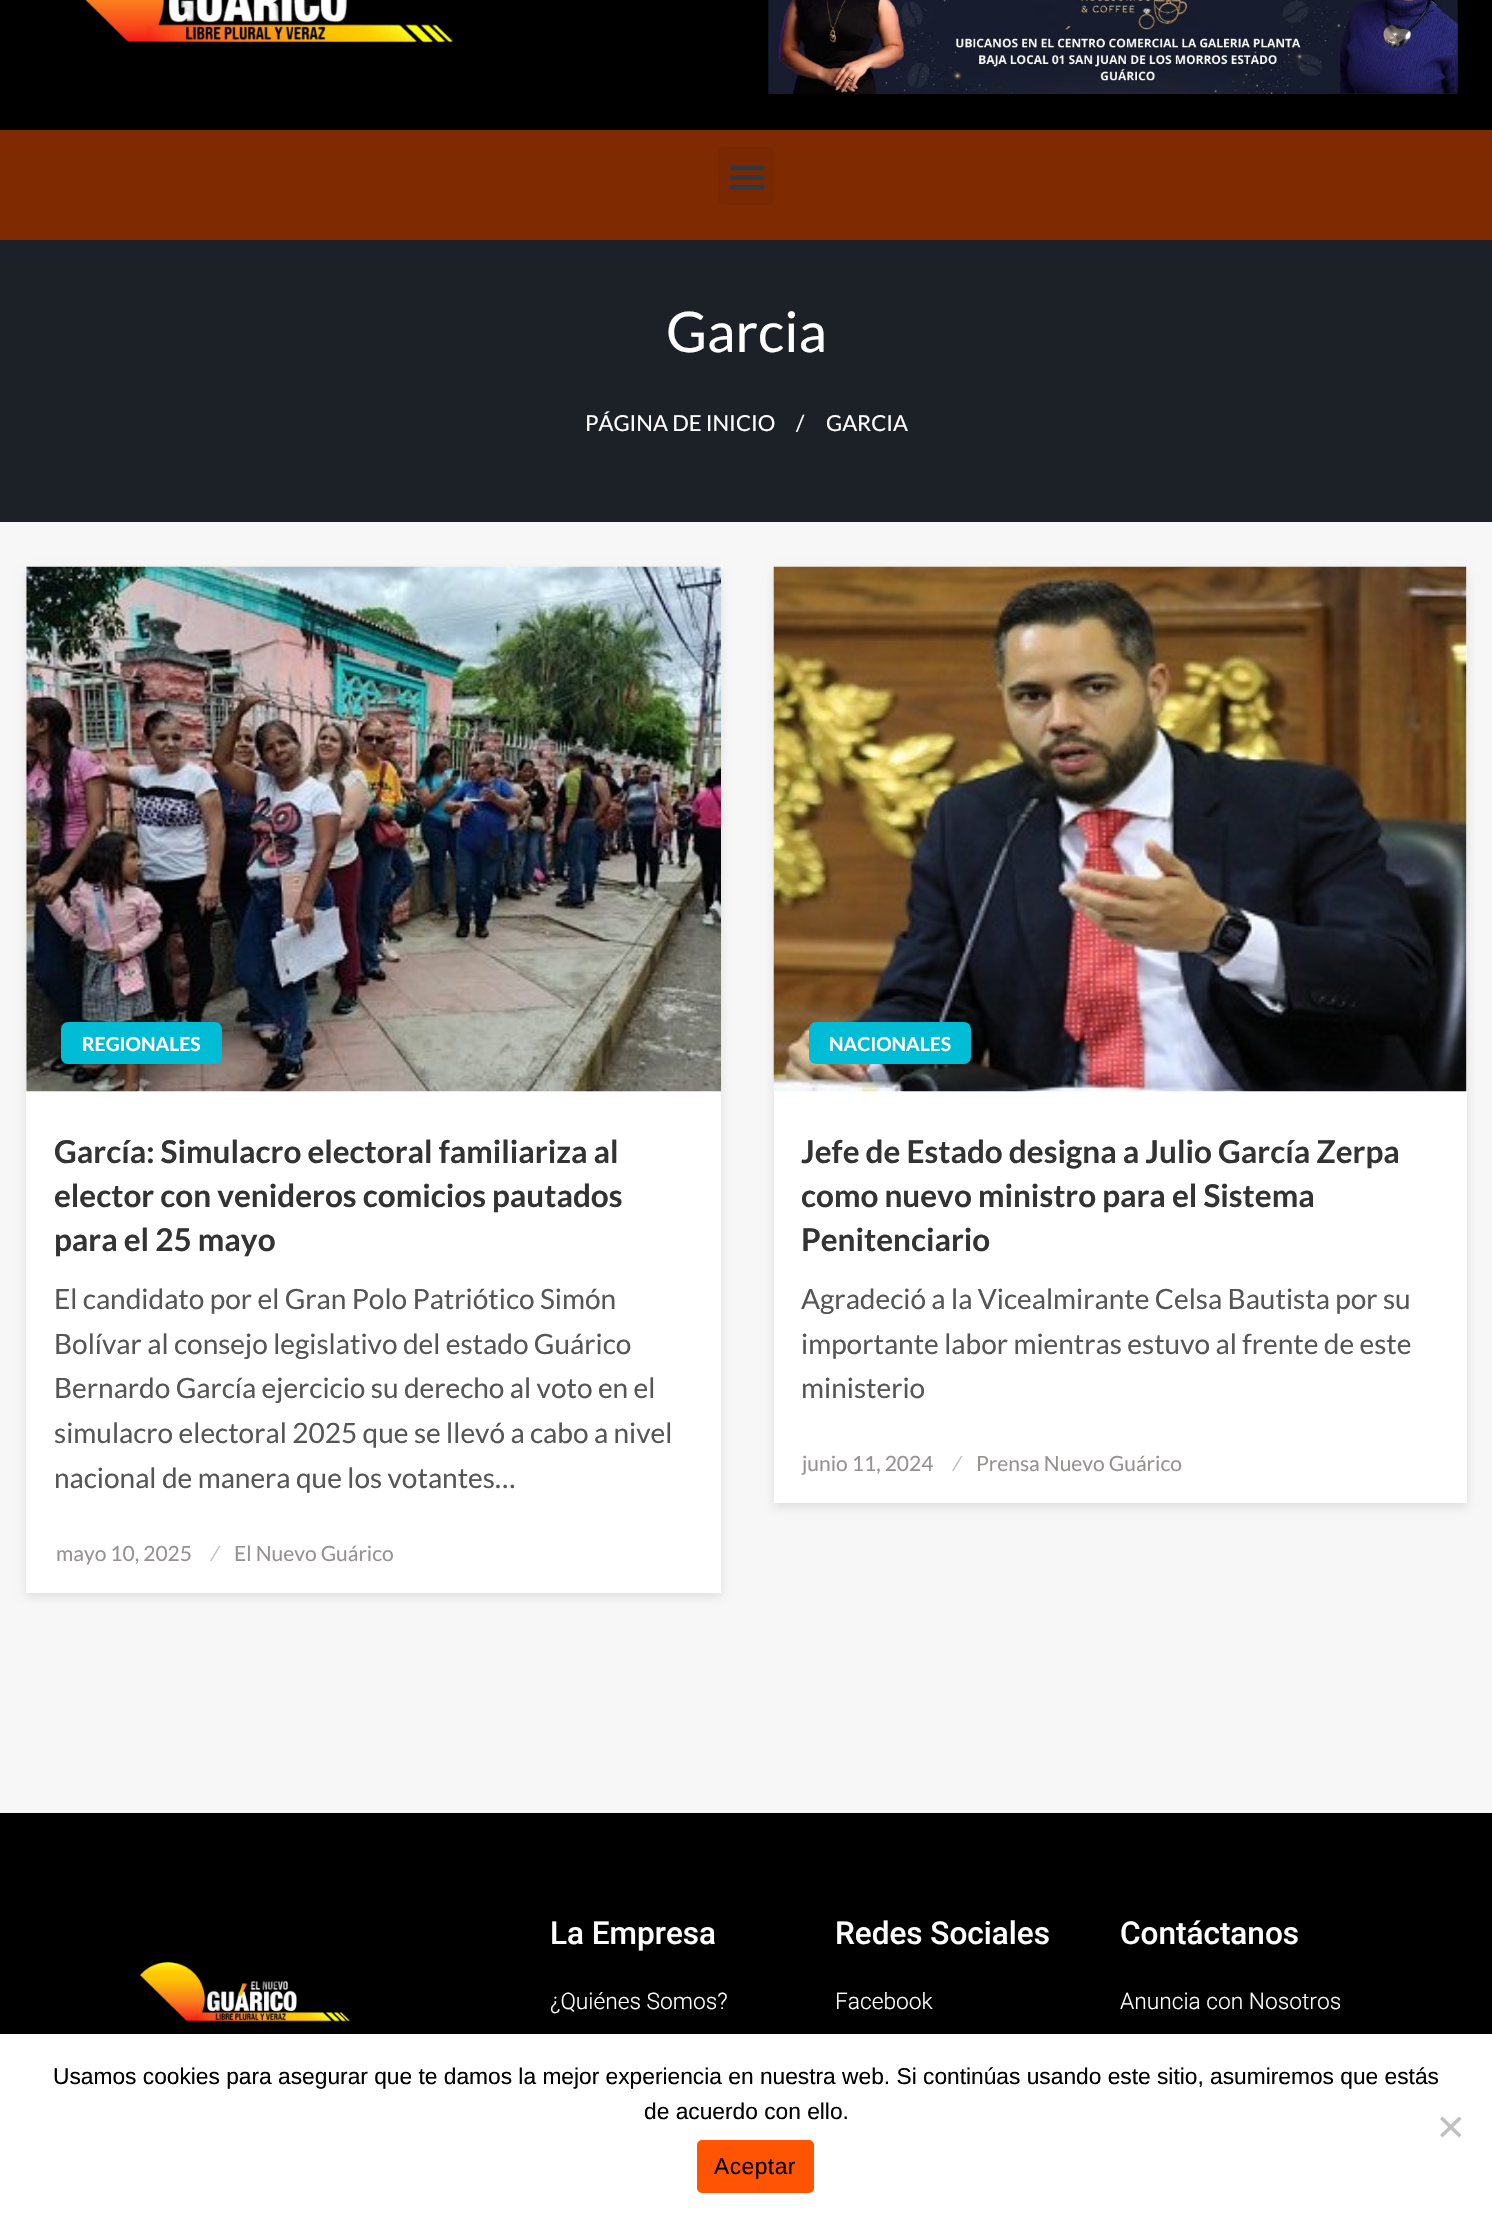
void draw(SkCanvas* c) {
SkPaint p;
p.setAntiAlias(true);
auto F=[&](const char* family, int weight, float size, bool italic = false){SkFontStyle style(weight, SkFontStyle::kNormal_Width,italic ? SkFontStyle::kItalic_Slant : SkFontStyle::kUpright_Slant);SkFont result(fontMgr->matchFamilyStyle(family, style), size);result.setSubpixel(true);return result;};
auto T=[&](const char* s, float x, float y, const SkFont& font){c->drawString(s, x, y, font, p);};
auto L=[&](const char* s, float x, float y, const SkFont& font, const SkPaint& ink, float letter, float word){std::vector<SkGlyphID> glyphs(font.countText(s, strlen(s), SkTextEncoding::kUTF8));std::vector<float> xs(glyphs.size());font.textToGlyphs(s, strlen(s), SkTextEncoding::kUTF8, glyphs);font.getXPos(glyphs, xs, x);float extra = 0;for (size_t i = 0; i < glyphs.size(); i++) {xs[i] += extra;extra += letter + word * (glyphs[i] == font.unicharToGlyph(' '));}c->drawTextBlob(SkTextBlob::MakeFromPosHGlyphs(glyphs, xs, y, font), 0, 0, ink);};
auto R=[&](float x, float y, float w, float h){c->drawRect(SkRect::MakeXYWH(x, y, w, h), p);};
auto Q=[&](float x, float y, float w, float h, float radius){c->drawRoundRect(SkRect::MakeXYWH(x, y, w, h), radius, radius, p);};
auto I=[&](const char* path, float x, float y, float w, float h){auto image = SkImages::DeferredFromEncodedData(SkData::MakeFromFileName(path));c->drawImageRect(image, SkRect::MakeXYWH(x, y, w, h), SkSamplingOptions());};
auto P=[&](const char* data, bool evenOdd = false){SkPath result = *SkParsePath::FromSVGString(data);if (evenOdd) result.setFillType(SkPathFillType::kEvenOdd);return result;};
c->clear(0xfff7f7f7);
p.setColor(0xff000000);
R(0,0,1492,130);
I("1.png",85,0,369,43);
I("2.png",768,0,690,94);
p.setColor(0x80000000);
p.setMaskFilter(SkMaskFilter::MakeBlur(kNormal_SkBlurStyle, 9));
c->drawRect(SkRect::MakeXYWH(0,130,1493,110),p);
p.setMaskFilter(nullptr);
p.setColor(0xff802a02);
R(0,130,1492,110);
p.setColor(0xff7a2802);
Q(718,147,57,58,5);
I("3.png",729,165,36,25);
p.setColor(0xff1c2127);
R(0,240,1492,282);
auto f1 = F("Lato",400,56);
p.setColor(0xffffffff);
T("Garcia",666,352,f1);
auto f2 = F("Lato",400,22);
T("PÁGINA DE INICIO",585,431,f2);
T("/",796,431,f2);
T("GARCIA",826,431,f2);
p.setColor(0x1a000000);
p.setMaskFilter(SkMaskFilter::MakeBlur(kNormal_SkBlurStyle, 4.5));
c->drawRect(SkRect::MakeXYWH(26,571,695,1025),p);
p.setMaskFilter(nullptr);
p.setColor(0xffffffff);
R(26,567,695,1026);
I("4.png",26,566,695,526);
p.setColor(0xff00bcd4);
Q(61,1022,161,42,7);
auto f3 = F("Lato",700,19.25);
p.setColor(0xffffffff);
T("REGIONALES",82,1051,f3);
auto f4 = F("Lato",700,31.5);
p.setColor(0xff333333);
T("García: Simulacro electoral familiariza al",54,1163,f4);
T("elector con venideros comicios pautados",54,1207,f4);
T("para el 25 mayo",54,1251,f4);
auto f5 = F("Lato",400,28);
p.setColor(0xff565656);
T("El candidato por el Gran Polo Patriótico Simón",54,1309,f5);
T("Bolívar al consejo legislativo del estado Guárico",54,1354,f5);
T("Bernardo García ejercicio su derecho al voto en el",54,1398,f5);
T("simulacro electoral 2025 que se llevó a cabo a nivel",54,1443,f5);
T("nacional de manera que los votantes…",54,1488,f5);
auto f6 = F("Lato",400,21);
p.setColor(0xff969292);
T("mayo 10, 2025",56,1561,f6);
p.setColor(0xffc0c0c0);
T("⁄",212,1561,f6);
p.setColor(0xff969292);
T("El Nuevo Guárico",234,1561,f6);
p.setColor(0x1a000000);
p.setMaskFilter(SkMaskFilter::MakeBlur(kNormal_SkBlurStyle, 4.5));
c->drawRect(SkRect::MakeXYWH(774,571,693,936),p);
p.setMaskFilter(nullptr);
p.setColor(0xffffffff);
R(774,567,693,936);
I("5.png",773,566,694,526);
p.setColor(0xff00bcd4);
Q(809,1022,162,42,7);
p.setColor(0xffffffff);
T("NACIONALES",829,1051,f3);
p.setColor(0xff333333);
T("Jefe de Estado designa a Julio García Zerpa",801,1163,f4);
T("como nuevo ministro para el Sistema",801,1207,f4);
T("Penitenciario",801,1251,f4);
p.setColor(0xff565656);
T("Agradeció a la Vicealmirante Celsa Bautista por su",801,1309,f5);
T("importante labor mientras estuvo al frente de este",801,1354,f5);
T("ministerio",801,1398,f5);
p.setColor(0xff969292);
T("junio 11, 2024",802,1471,f6);
p.setColor(0xffc0c0c0);
T("⁄",954,1471,f6);
p.setColor(0xff969292);
T("Prensa Nuevo Guárico",976,1471,f6);
p.setColor(0xff000000);
R(0,1813,1492,221);
I("6.png",140,1962,210,60);
auto f7 = F("Roboto",500,31.5);
p.setColor(0xffffffff);
T("La Empresa",550,1944,f7);
auto f8 = F("Roboto",300,22.75);
T("¿Quiénes Somos?",550,2009,f8);
T("Redes Sociales",835,1944,f7);
T("Facebook",835,2009,f8);
T("Contáctanos",1120,1944,f7);
T("Anuncia con Nosotros",1120,2009,f8);
R(0,2034,1492,184);
auto f9 = F("Liberation Sans",400,22.75);
p.setColor(0xff000000);
T("Usamos cookies para asegurar que te damos la mejor experiencia en nuestra web. Si continúas usando este sitio, asumiremos que estás",53,2084,f9);
T("de acuerdo con ello.",644,2119,f9);
p.setColor(0xffc0c0c0);
c->drawPath(P("M1459 2116.5l2.5 2.5l-19 18.5l-2.5-2.5z"),p);
c->drawPath(P("M1440 2119l2.5-2.5l19 18.5l-2.5 2.5z"),p);
p.setColor(0xffff5403);
Q(697,2140,117,53,5);
p.setColor(0xff000000);
L("Aceptar",714,2174,f9,p,.5,0);
}
